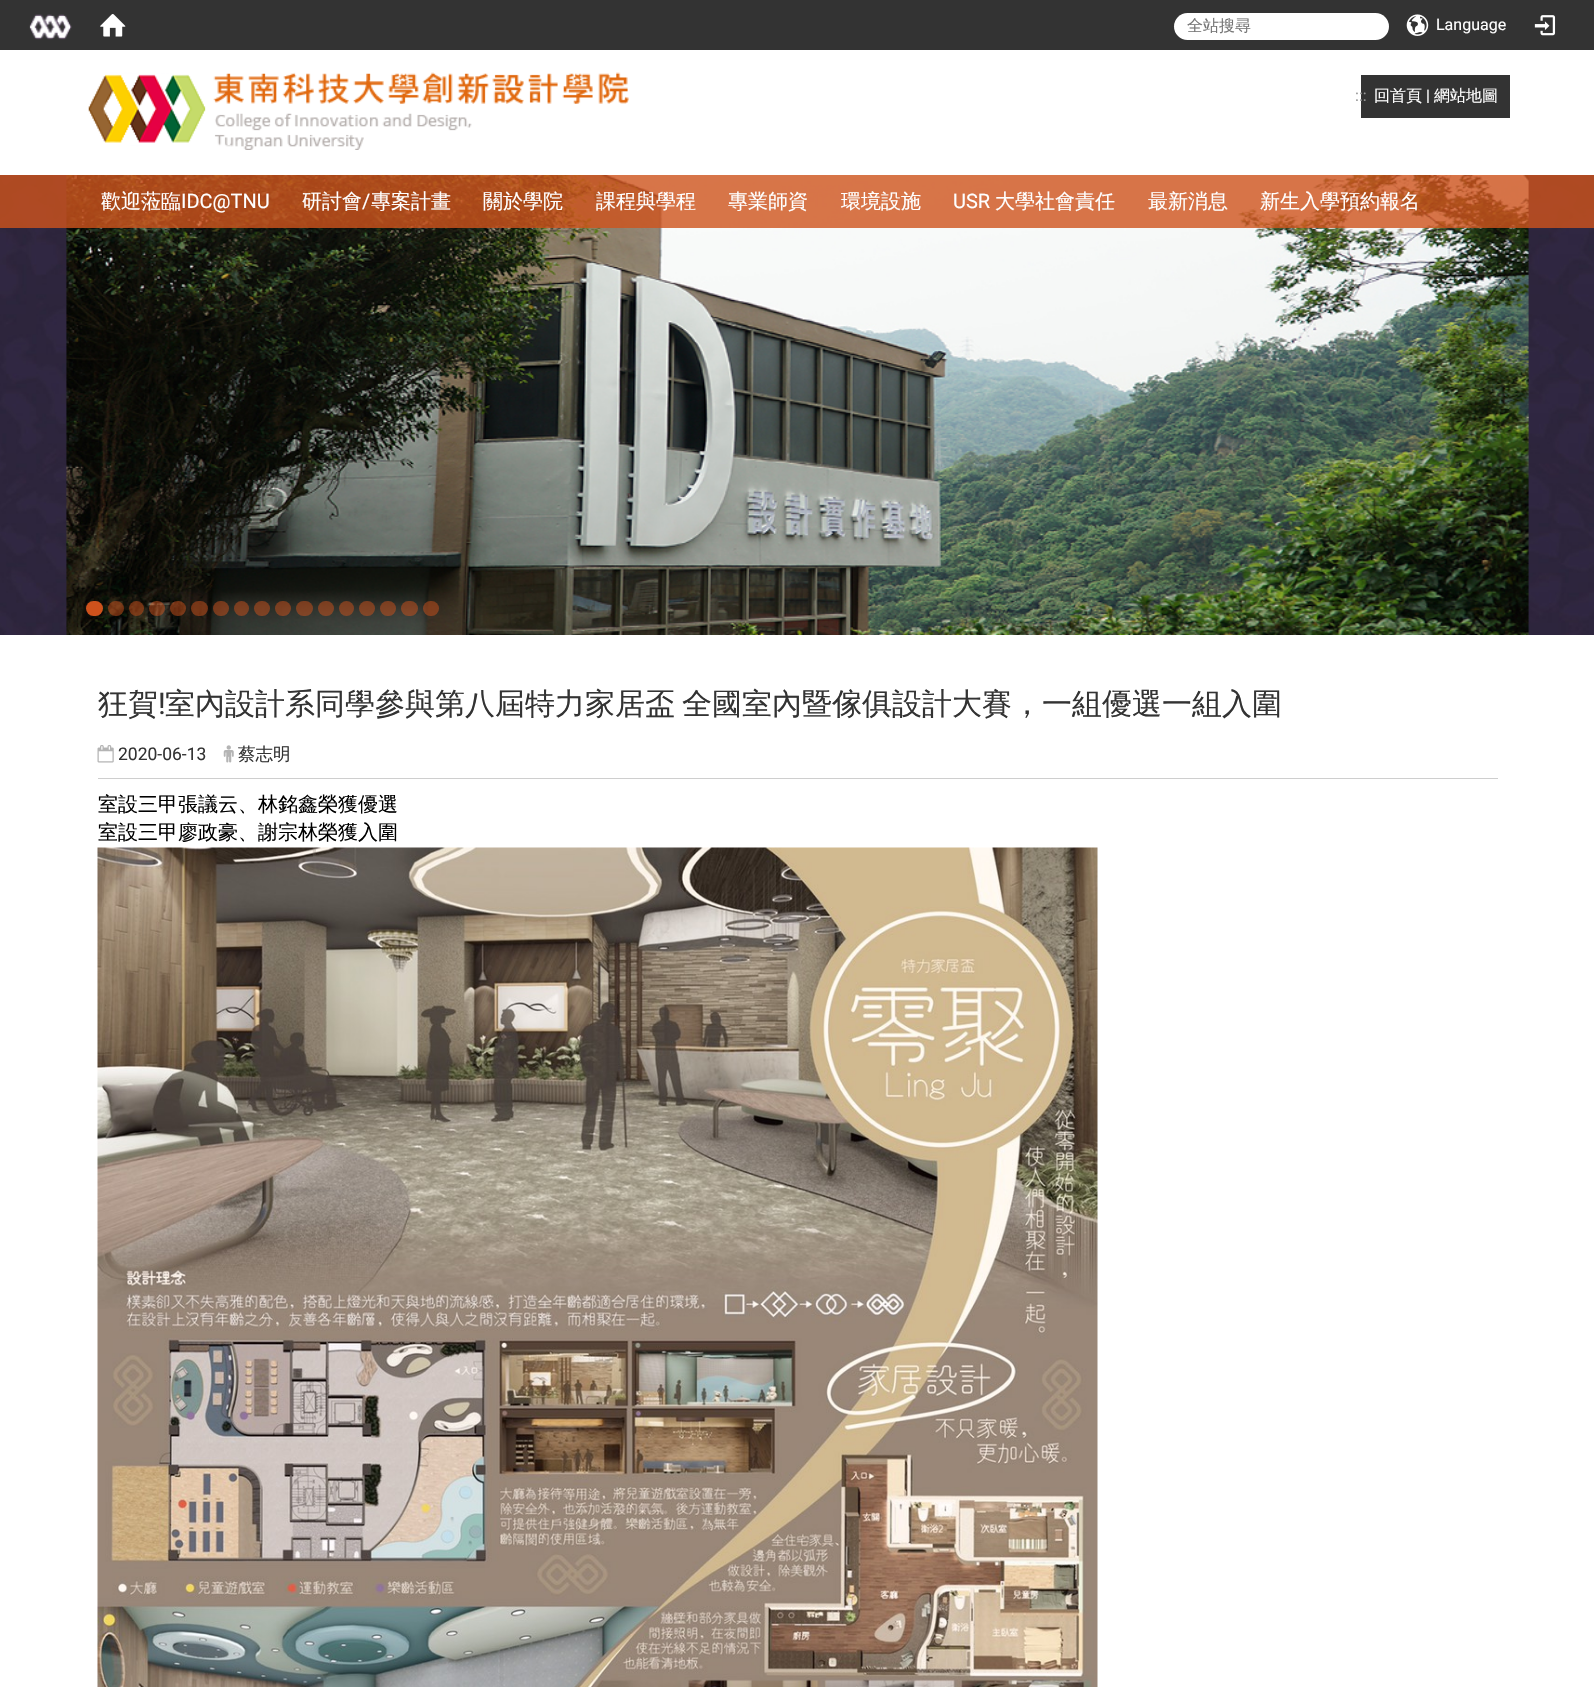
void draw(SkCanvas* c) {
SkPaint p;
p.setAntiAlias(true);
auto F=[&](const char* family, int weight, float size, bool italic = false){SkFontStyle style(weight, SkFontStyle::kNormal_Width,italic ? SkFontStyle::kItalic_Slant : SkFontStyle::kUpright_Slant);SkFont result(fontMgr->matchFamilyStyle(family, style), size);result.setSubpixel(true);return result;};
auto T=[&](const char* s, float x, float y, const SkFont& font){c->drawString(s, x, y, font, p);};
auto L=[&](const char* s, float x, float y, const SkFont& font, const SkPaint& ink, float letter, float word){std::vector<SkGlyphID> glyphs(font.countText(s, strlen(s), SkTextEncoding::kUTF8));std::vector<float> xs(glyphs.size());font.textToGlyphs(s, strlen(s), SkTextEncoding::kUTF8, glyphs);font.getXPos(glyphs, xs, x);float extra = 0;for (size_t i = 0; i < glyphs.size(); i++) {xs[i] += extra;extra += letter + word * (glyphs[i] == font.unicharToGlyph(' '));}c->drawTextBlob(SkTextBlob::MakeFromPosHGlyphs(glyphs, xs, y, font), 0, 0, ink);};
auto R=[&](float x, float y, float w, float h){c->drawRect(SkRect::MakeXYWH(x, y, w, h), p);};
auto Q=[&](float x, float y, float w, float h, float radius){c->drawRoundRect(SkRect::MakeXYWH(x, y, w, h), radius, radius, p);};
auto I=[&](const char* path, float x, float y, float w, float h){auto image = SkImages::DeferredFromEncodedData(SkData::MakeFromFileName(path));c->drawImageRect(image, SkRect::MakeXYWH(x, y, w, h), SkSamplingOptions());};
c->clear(0xffffffff);
p.setColor(0xff333333);
R(0,0,1594,50);
I("1.png",29,14,43,26);
I("2.png",100,14,26,23);
p.setColor(0xffffffff);
Q(1174,13,215,27,13.5);
auto f1 = F("WenQuanYi Zen Hei",500,16);
p.setColor(0xff757575);
T("全站搜尋",1187,31,f1);
I("3.png",1406,14,23,22);
auto f2 = F("Roboto",400,16);
p.setColor(0xffffffff);
T("Language",1436,30,f2);
I("4.png",1534,15,22,21);
I("5.png",88,72,541,78);
p.setColor(0xff333333);
R(1361,75,149,43);
p.setColor(0xff999999);
T(":::",1355,101,f2);
p.setColor(0xffffffff);
T("回首頁",1374,101,f1);
T("|",1426,101,f2);
T("網站地圖",1434,101,f1);
I("6.png",0,175,1594,460);
I("7.png",66,175,1463,460);
p.setColor(0xffce521c);
Q(86,601,17,15,7.5);
p.setColor(0x80ce521c);
Q(108,601,16,15,7.5);
c->drawCircle(136.5,608.5,7.5,p);
Q(149,601,16,15,7.5);
Q(170,601,16,15,7.5);
Q(191,601,17,15,7.5);
Q(213,601,16,15,7.5);
c->drawCircle(241.5,608.5,7.5,p);
Q(254,601,16,15,7.5);
Q(275,601,16,15,7.5);
Q(296,601,17,15,7.5);
Q(318,601,16,15,7.5);
c->drawCircle(346.5,608.5,7.5,p);
Q(359,601,16,15,7.5);
Q(380,601,16,15,7.5);
Q(401,601,17,15,7.5);
Q(423,601,16,15,7.5);
p.setColor(0xccce521c);
R(0,175,1594,53);
auto f3 = F("WenQuanYi Zen Hei",500,20);
p.setColor(0xffffffff);
T("歡迎蒞臨",101,208,f3);
auto f4 = F("Roboto",400,20);
T("IDC@TNU",181,208,f4);
T("研討會",302,208,f3);
T("/",362,208,f4);
T("專案計畫",371,208,f3);
T("關於學院",483,208,f3);
T("課程與學程",596,208,f3);
T("專業師資",728,208,f3);
T("環境設施",841,208,f3);
T("USR",953,208,f4);
T("大學社會責任",995,208,f3);
T("最新消息",1148,208,f3);
T("新生入學預約報名",1260,208,f3);
auto f5 = F("WenQuanYi Zen Hei",500,30);
p.setColor(0xff333333);
T("狂賀",98,714,f5);
auto f6 = F("Roboto",400,30);
T("!",158,714,f6);
L("室內設計系同學參與第八屆特力家居盃 全國室內暨傢俱設計大賽，一組優選一組入圍",165,714,f5,p,0,-2);
p.setColor(0xffcecece);
R(98,778,1400,1);
I("8.png",97,745,17,18);
auto f7 = F("Roboto",400,17.5);
p.setColor(0xff333333);
T("2020-06-13",118,760,f7);
I("9.png",223,745,11,18);
auto f8 = F("WenQuanYi Zen Hei",500,17.5);
T("蔡志明",238,760,f8);
p.setColor(0xff000000);
T("室設三甲張議云、林銘鑫榮獲優選",98,811,f3);
T("室設三甲廖政豪、謝宗林榮獲入圍",98,839,f3);
I("10.png",97,847,1001,840);
}
